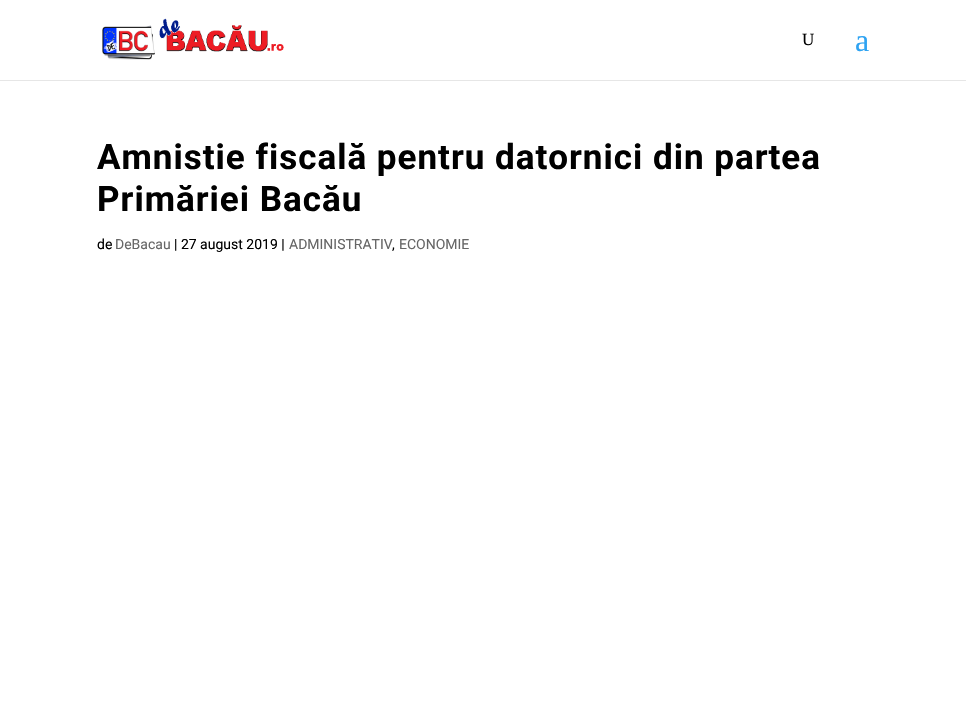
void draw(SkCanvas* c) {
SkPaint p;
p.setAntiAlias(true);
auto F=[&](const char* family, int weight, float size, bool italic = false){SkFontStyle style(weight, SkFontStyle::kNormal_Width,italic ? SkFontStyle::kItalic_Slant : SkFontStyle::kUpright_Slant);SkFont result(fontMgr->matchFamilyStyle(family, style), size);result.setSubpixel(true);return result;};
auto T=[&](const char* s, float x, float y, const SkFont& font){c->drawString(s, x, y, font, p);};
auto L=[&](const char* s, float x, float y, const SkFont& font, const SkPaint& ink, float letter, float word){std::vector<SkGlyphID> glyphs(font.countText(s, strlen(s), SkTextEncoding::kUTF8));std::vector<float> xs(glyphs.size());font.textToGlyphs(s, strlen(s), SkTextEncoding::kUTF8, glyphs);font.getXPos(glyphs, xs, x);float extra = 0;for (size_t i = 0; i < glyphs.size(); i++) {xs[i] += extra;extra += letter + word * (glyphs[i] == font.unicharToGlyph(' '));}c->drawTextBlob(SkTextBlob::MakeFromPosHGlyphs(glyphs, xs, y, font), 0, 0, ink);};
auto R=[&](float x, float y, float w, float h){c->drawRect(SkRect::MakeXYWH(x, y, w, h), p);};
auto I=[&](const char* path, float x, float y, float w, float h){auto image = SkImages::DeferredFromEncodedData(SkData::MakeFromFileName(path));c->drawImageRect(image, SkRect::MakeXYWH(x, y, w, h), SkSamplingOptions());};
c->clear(0xffffffff);
p.setColor(0xffe6e6e6);
R(0,80,966,1);
I("1.png",102,18,182,42);
auto f1 = F("Liberation Serif",400,17);
p.setColor(0xff000000);
T("U",802,45,f1);
auto f2 = F("Liberation Serif",400,32);
p.setColor(0xff2ea3f2);
T("a",855,51,f2);
auto f3 = F("Roboto",700,35);
p.setColor(0xff000000);
L("Amnistie fiscală pentru datornici din partea",97,169,f3,p,1,0);
L("Primăriei Bacău",97,211,f3,p,1,0);
auto f4 = F("Roboto",400,14);
T("de",97,249,f4);
p.setColor(0xff666666);
T("DeBacau",115,249,f4);
p.setColor(0xff000000);
T("| 27 august 2019 |",174,249,f4);
p.setColor(0xff666666);
T("ADMINISTRATIV",289,249,f4);
p.setColor(0xff000000);
T(",",392,249,f4);
p.setColor(0xff666666);
T("ECONOMIE",399,249,f4);
}
